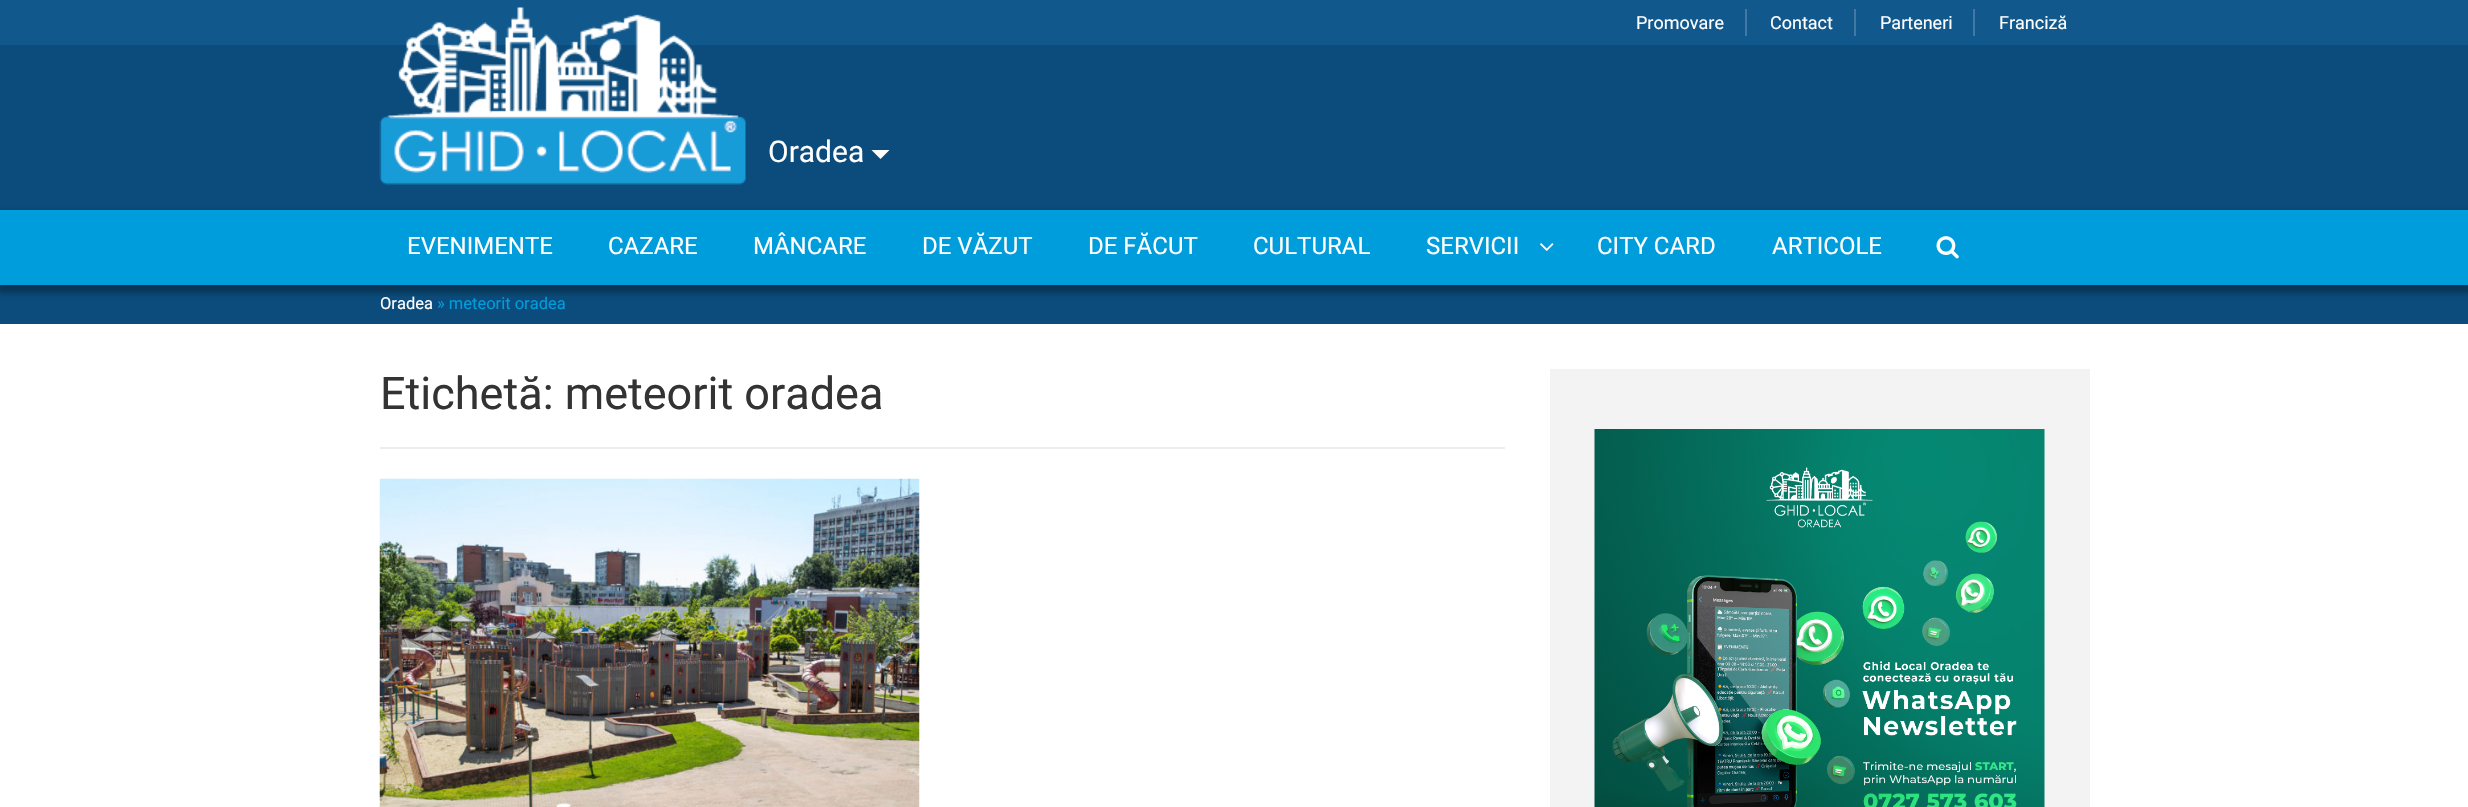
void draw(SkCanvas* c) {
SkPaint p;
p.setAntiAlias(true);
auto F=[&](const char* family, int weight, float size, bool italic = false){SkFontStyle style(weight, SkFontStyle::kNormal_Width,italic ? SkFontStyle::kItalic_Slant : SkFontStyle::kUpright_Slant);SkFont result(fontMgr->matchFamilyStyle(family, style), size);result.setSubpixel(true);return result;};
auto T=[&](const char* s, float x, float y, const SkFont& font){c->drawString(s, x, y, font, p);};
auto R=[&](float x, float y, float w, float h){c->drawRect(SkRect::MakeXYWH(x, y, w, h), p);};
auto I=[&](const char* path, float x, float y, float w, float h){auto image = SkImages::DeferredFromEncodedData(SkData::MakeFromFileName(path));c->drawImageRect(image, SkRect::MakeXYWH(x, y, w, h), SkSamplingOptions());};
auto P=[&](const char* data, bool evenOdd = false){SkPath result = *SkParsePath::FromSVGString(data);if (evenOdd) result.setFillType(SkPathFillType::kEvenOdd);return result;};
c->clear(0xffffffff);
p.setColor(0xff11588d);
R(0,0,2468,45);
auto f1 = F("Roboto",400,18);
p.setColor(0xffffffff);
T("Promovare",1636,29,f1);
p.setColor(0xff4179a4);
R(1745,9,2,27);
p.setColor(0xffffffff);
T("Contact",1770,29,f1);
p.setColor(0xff4179a4);
R(1854,9,2,27);
p.setColor(0xffffffff);
T("Parteneri",1880,29,f1);
p.setColor(0xff4179a4);
R(1973,9,2,27);
p.setColor(0xffffffff);
T("Franciză",1999,29,f1);
p.setColor(0xff0b4c7c);
R(0,45,2468,165);
I("1.png",379,7,367,178);
auto f2 = F("Roboto",400,30);
p.setColor(0xffffffff);
T("Oradea",768,162,f2);
c->drawPath(P("M871.5 150h18l-9 9z"),p);
p.setColor(0xff0b4c7c);
R(0,285,2468,39);
p.setColor(0x4d000000);
p.setMaskFilter(SkMaskFilter::MakeBlur(kNormal_SkBlurStyle, 3));
c->drawRect(SkRect::MakeXYWH(-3,212,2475,81),p);
p.setMaskFilter(nullptr);
p.setColor(0xff009ddc);
R(0,210,2468,75);
auto f3 = F("Roboto",400,24);
p.setColor(0xffffffff);
T("EVENIMENTE",407,254,f3);
T("CAZARE",608,254,f3);
T("MÂNCARE",753,254,f3);
T("DE VĂZUT",922,254,f3);
T("DE FĂCUT",1088,254,f3);
T("CULTURAL",1253,254,f3);
T("SERVICII",1426,254,f3);
I("2.png",1540,243,14,8);
T("CITY CARD",1597,254,f3);
T("ARTICOLE",1772,254,f3);
I("3.png",1936,236,23,23);
auto f4 = F("Roboto",400,16.5);
T("Oradea",380,309,f4);
p.setColor(0xff009ddc);
T("» meteorit oradea",437,309,f4);
p.setColor(0xffeeeeee);
R(380,447,1125,2);
auto f5 = F("Roboto",400,45);
p.setColor(0xff333333);
T("Etichetă: meteorit oradea",380,409,f5);
I("4.png",379,478,541,329);
p.setColor(0xfff3f3f3);
R(1550,369,540,438);
I("5.png",1594,429,451,378);
}
